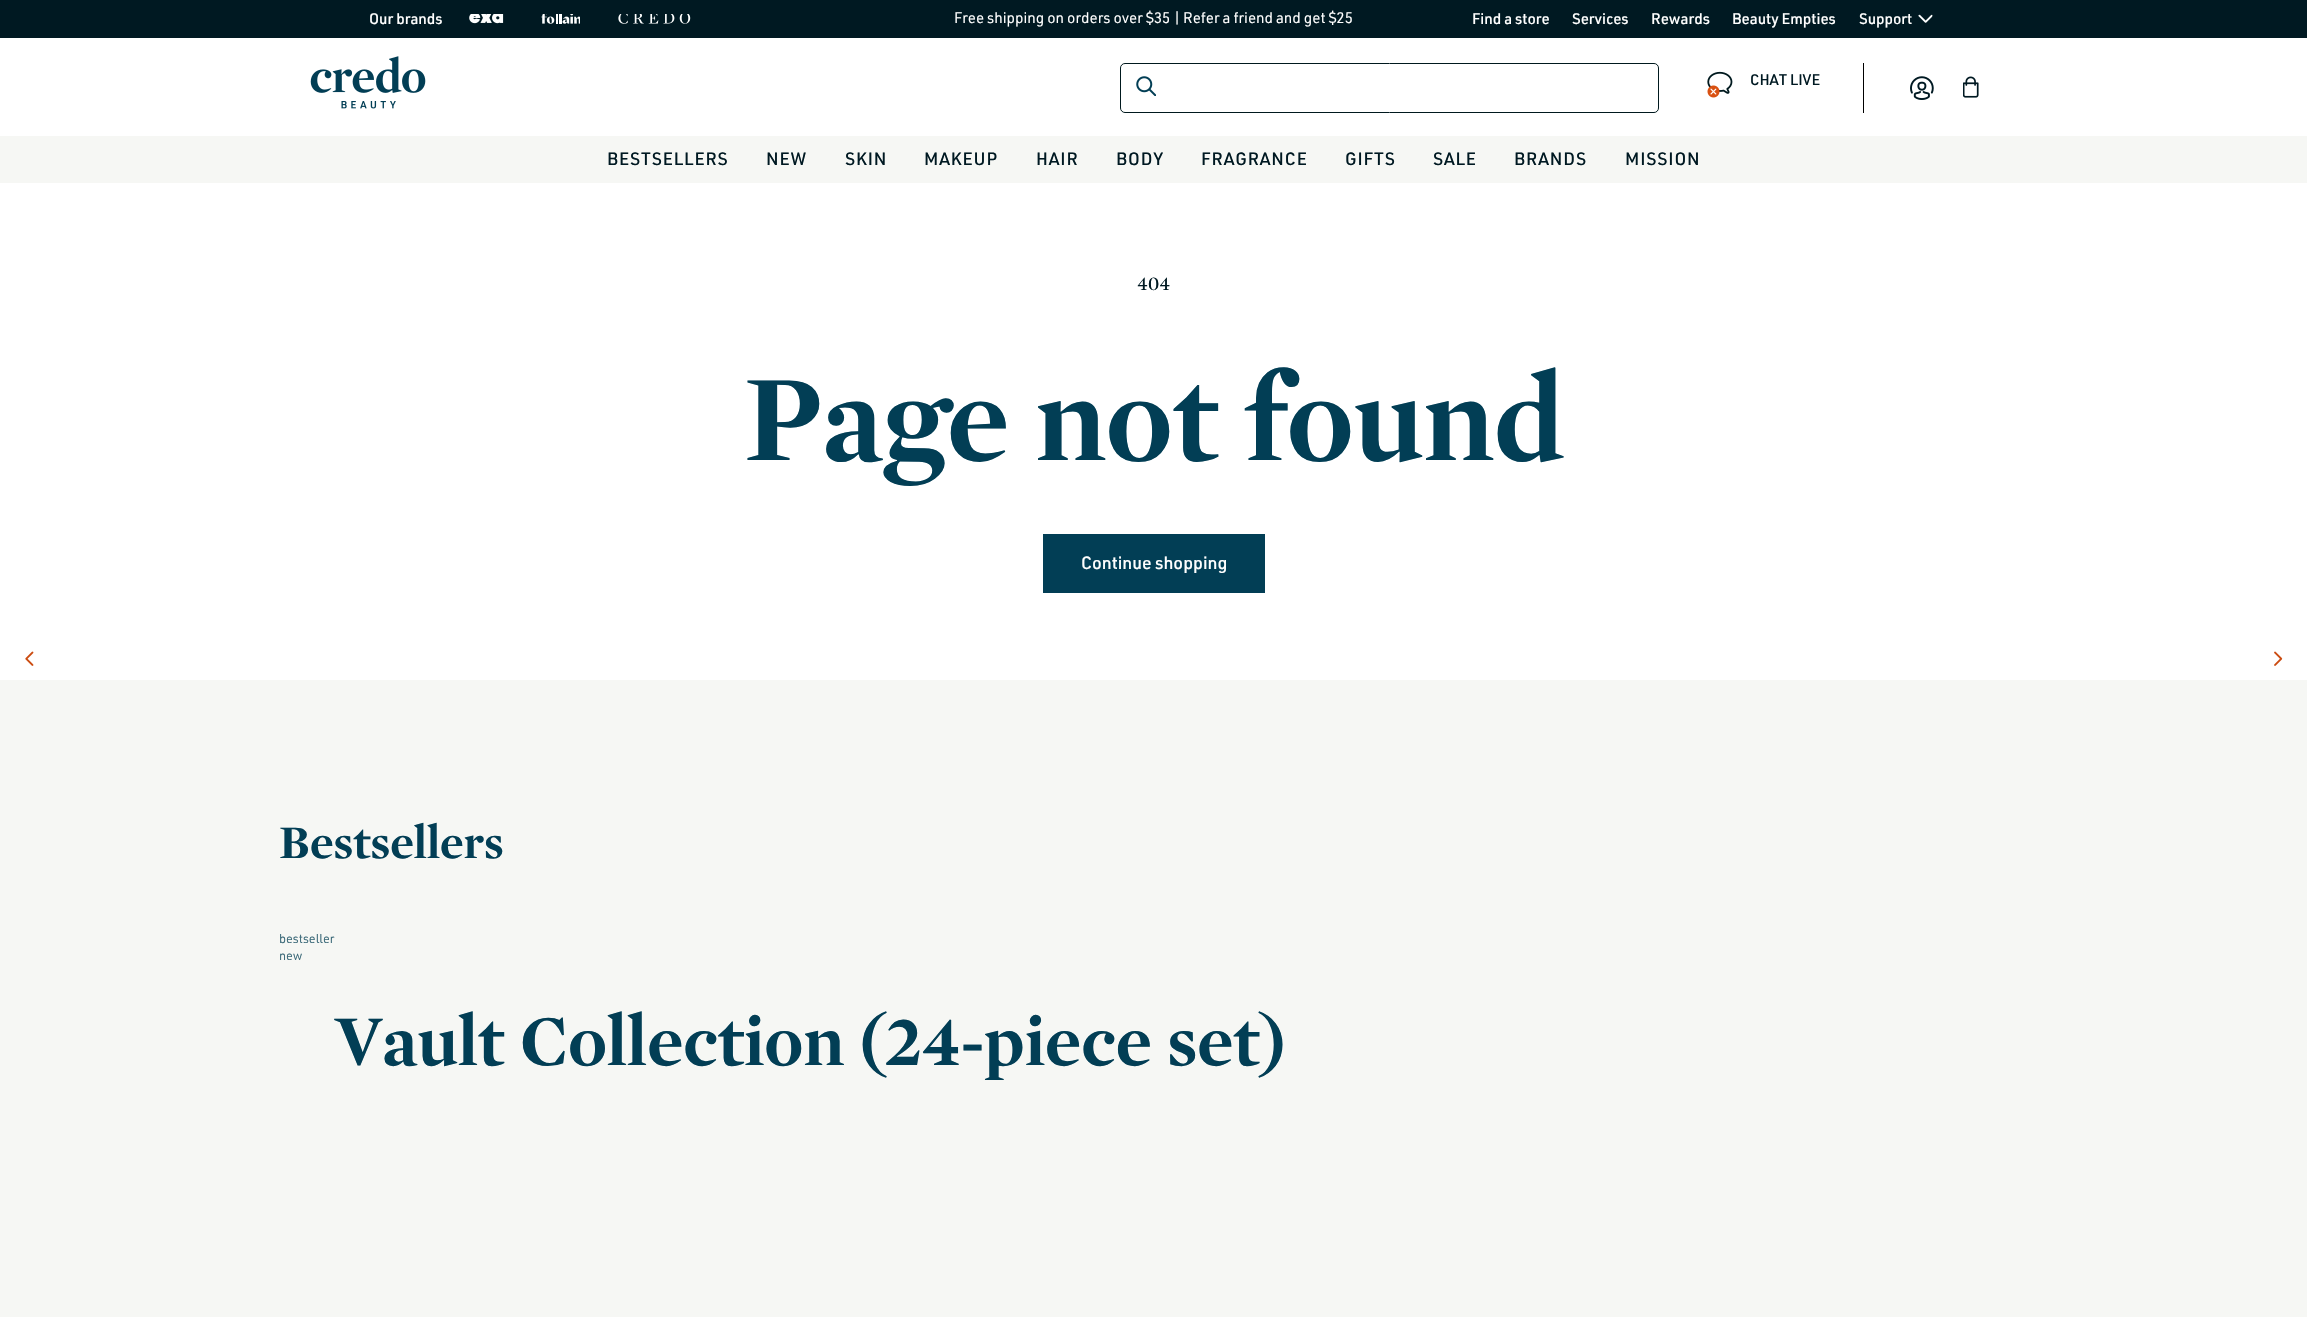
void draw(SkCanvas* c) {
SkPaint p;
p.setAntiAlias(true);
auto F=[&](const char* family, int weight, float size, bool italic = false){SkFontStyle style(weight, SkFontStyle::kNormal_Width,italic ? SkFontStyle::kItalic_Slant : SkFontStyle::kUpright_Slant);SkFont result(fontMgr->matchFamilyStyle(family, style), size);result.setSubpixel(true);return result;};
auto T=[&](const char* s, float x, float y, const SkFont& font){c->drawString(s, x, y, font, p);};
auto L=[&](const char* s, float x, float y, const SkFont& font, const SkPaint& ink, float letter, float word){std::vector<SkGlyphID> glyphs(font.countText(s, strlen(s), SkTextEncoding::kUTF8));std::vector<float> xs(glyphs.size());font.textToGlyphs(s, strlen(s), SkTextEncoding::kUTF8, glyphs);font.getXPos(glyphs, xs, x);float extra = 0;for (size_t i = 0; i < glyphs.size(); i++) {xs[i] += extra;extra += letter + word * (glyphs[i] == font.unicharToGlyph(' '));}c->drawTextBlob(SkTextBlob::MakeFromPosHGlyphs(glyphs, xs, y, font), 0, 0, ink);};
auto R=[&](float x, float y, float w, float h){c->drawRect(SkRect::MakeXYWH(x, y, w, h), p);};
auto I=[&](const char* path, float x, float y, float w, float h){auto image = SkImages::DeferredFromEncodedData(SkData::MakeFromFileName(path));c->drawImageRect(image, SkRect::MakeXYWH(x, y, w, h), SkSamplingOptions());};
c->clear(0xffffffff);
auto f1 = F("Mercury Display",400,20);
p.setColor(0xff001922);
T("404",1137,290,f1);
auto f2 = F("Mercury Display",700,125);
p.setColor(0xff023e55);
L("Page not found",744,460,f2,p,-.1,0);
R(1043,534,222,59);
auto f3 = F("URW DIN",500,17.5);
p.setColor(0xffffffff);
T("Continue shopping",1081,569,f3);
c->save();
c->clipRect(SkRect::MakeXYWH(0,680,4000,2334));
p.setStroke(true);
p.setStrokeWidth(2308);
p.setColor(0xfff6f7f4);
c->drawRect(SkRect::MakeXYWH(-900,-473,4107,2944),p);
c->restore();
p.setStroke(false);
p.setColor(0xff001922);
R(0,0,2307,38);
auto f4 = F("URW DIN",500,15);
p.setColor(0xffffffff);
T("Our brands",369,24,f4);
I("1.png",469,14,35,10);
I("2.png",541,14,39,10);
I("3.png",618,14,73,10);
auto f5 = F("URW DIN",400,15);
T("Free shipping on orders over $35",954,23,f5);
T("|",1173,23,f5);
T("Refer a friend and get $25",1183,23,f5);
T("Find a store",1472,24,f4);
T("Services",1572,24,f4);
T("Rewards",1651,24,f4);
T("Beauty Empties",1732,24,f4);
T("Support",1859,24,f4);
I("4.png",1918,14,15,9);
I("5.png",310,56,116,53);
p.setStroke(true);
p.setStrokeWidth(1);
p.setColor(0xff00191e);
c->drawRoundRect(SkRect::MakeXYWH(1120.5,63.5,538,49),4.5,4.5,p);
I("6.png",1136,76,20,20);
p.setStroke(false);
p.setColor(0xff000000);
R(1863,63,1,50);
I("7.png",1707,71,26,27);
p.setColor(0xff001922);
T("CHAT LIVE",1750,85,f4);
I("8.png",1910,76,24,24);
I("9.png",1963,76,16,22);
p.setColor(0xfff6f7f4);
R(0,136,2307,47);
p.setColor(0xff001922);
L("BESTSELLERS",607,165,f3,p,.9,0);
L("NEW",766,165,f3,p,.9,0);
L("SKIN",845,165,f3,p,.9,0);
L("MAKEUP",924,165,f3,p,.9,0);
L("HAIR",1036,165,f3,p,.9,0);
L("BODY",1116,165,f3,p,.9,0);
L("FRAGRANCE",1201,165,f3,p,.9,0);
L("GIFTS",1345,165,f3,p,.9,0);
L("SALE",1433,165,f3,p,.9,0);
L("BRANDS",1514,165,f3,p,.9,0);
L("MISSION",1625,165,f3,p,.9,0);
I("10.png",25,651,9,15);
I("11.png",2274,651,9,15);
p.setColor(0xfff6f7f4);
R(254,681,1799,636);
auto f6 = F("Mercury Display",700,47.5);
p.setColor(0xff023e55);
L("Bestsellers",279,858,f6,p,-.05,0);
auto f7 = F("URW DIN",400,12.5);
p.setColor(0xff3f6c7b);
T("bestseller",279,943,f7);
T("new",279,960,f7);
auto f8 = F("Mercury Display",700,72.5);
p.setColor(0xff023e55);
L("Vault Collection (24-piece set)",334,1065,f8,p,-.05,0);
}
